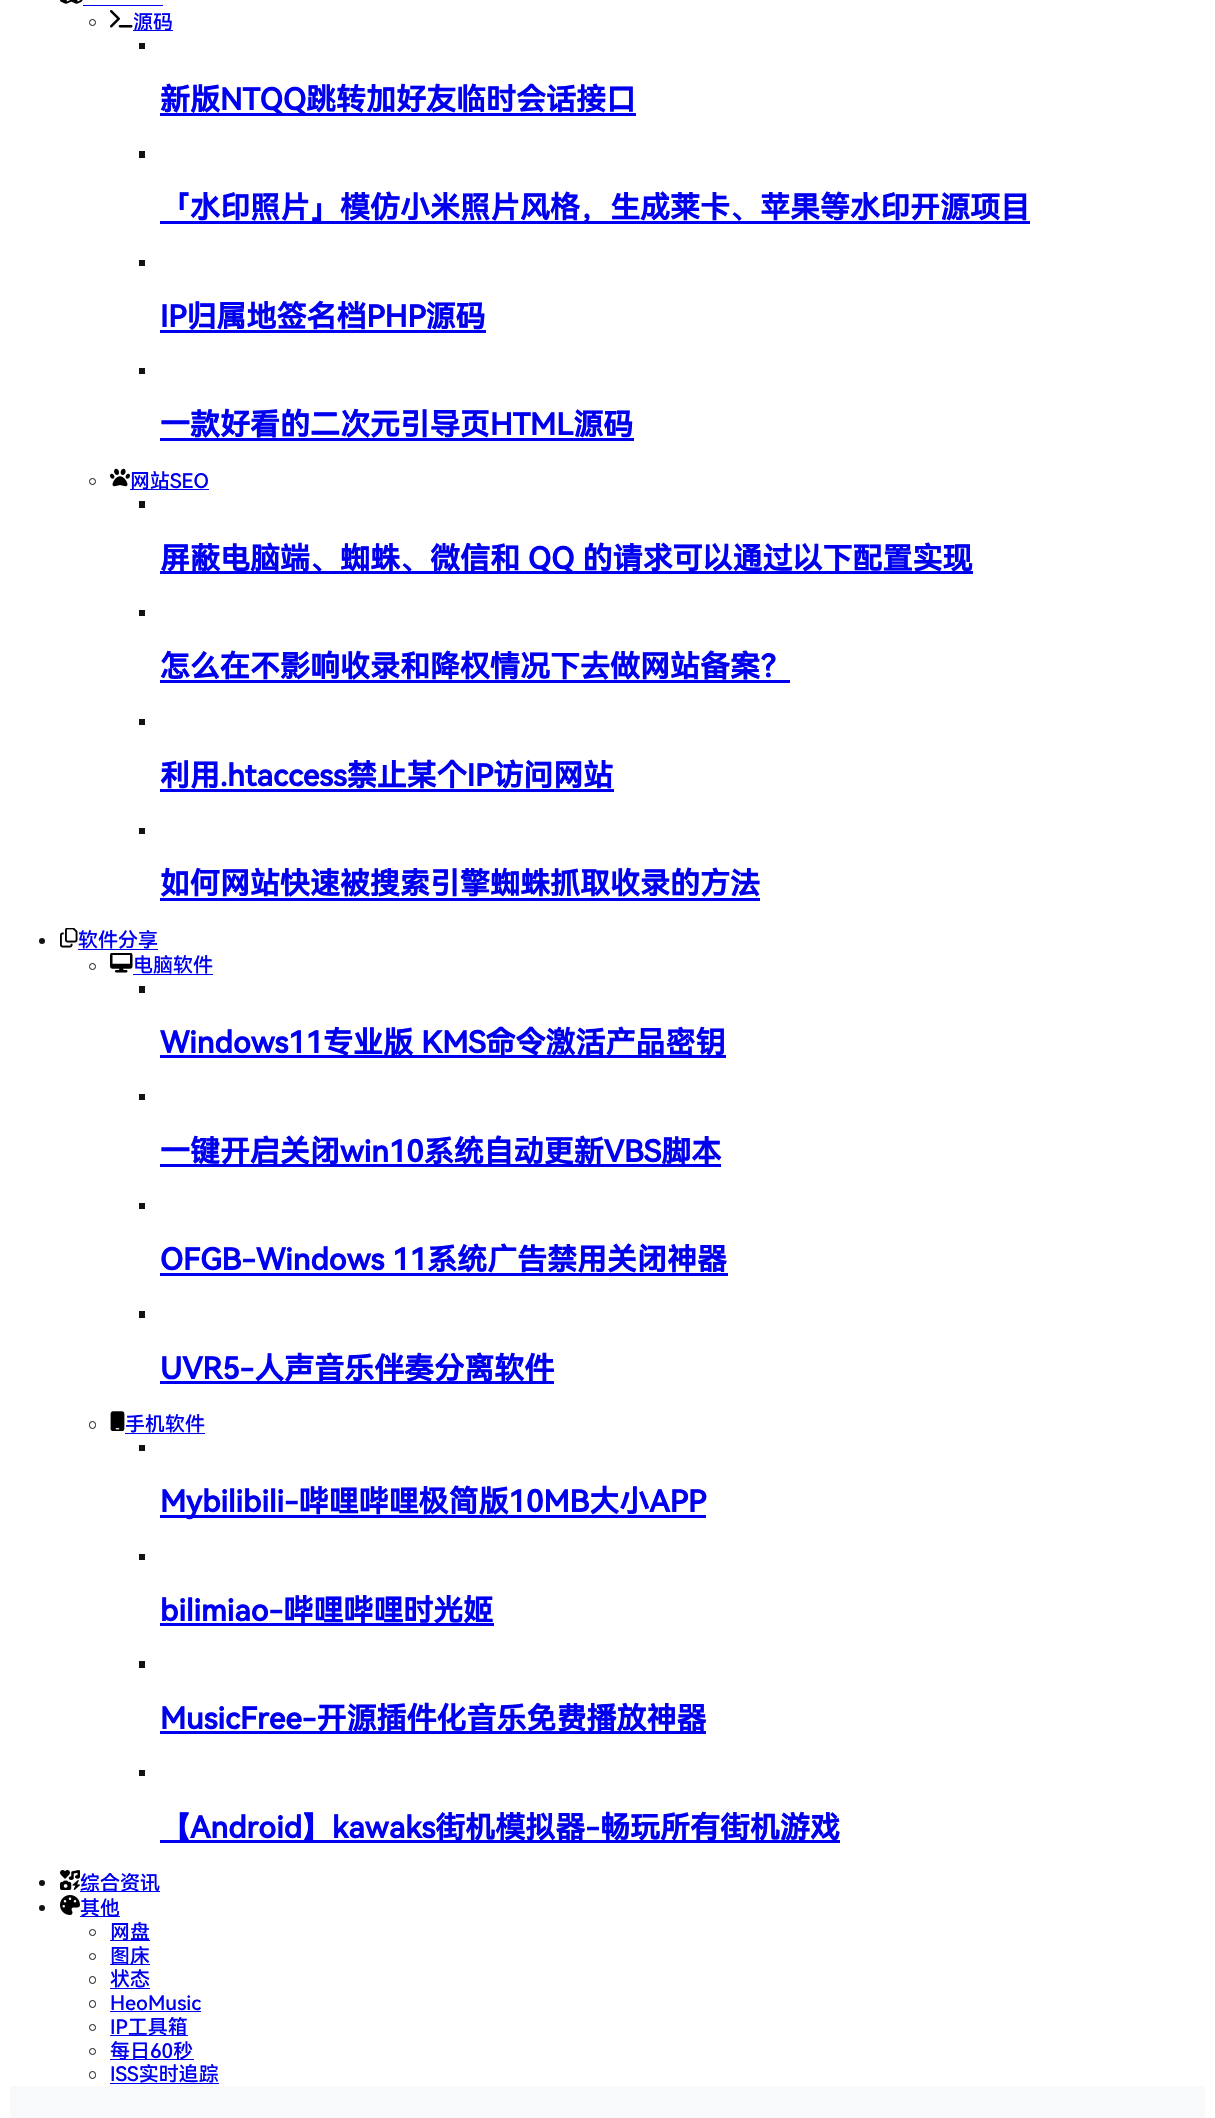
void draw(SkCanvas* c) {
SkPaint p;
p.setAntiAlias(true);
auto F=[&](const char* family, int weight, float size, bool italic = false){SkFontStyle style(weight, SkFontStyle::kNormal_Width,italic ? SkFontStyle::kItalic_Slant : SkFontStyle::kUpright_Slant);SkFont result(fontMgr->matchFamilyStyle(family, style), size);result.setSubpixel(true);return result;};
auto T=[&](const char* s, float x, float y, const SkFont& font){c->drawString(s, x, y, font, p);};
auto R=[&](float x, float y, float w, float h){c->drawRect(SkRect::MakeXYWH(x, y, w, h), p);};
auto I=[&](const char* path, float x, float y, float w, float h){auto image = SkImages::DeferredFromEncodedData(SkData::MakeFromFileName(path));c->drawImageRect(image, SkRect::MakeXYWH(x, y, w, h), SkSamplingOptions());};
c->clear(0xffffffff);
p.setColor(0xfff7f9fa);
R(10,2086,1195,32);
I("1.png",60,0,23,4);
p.setColor(0xff0000ee);
R(83,5,80,1);
p.setStroke(true);
p.setStrokeWidth(1);
p.setColor(0xff121212);
c->drawCircle(92.5,22.5,3,p);
I("2.png",110,10,23,18);
p.setStroke(false);
p.setColor(0xff0000ee);
R(133,30,40,1);
auto f1 = F("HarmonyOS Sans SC",500,20);
T("源码",133,29,f1);
p.setColor(0xff121212);
R(139,43,6,6);
p.setColor(0xff0000ee);
R(160,113,476,3);
auto f2 = F("HarmonyOS Sans SC",700,30);
T("新版NTQQ跳转加好友临时会话接口",160,110,f2);
p.setColor(0xff121212);
R(139,151,6,7);
p.setColor(0xff0000ee);
R(160,221,870,3);
T("「水印照片」模仿小米照片风格，生成莱卡、苹果等水印开源项目",160,218,f2);
p.setColor(0xff121212);
R(139,260,6,6);
p.setColor(0xff0000ee);
T("IP归属地签名档PHP源码",160,327,f2);
R(160,330,326,3);
p.setColor(0xff121212);
R(139,368,6,6);
p.setColor(0xff0000ee);
T("一款好看的二次元引导页HTML源码",160,435,f2);
R(160,438,474,3);
p.setStroke(true);
p.setColor(0xff121212);
c->drawCircle(92.5,481.5,3,p);
I("3.png",110,468,20,19);
p.setStroke(false);
p.setColor(0xff0000ee);
R(130,489,79,1);
T("网站SEO",130,488,f1);
p.setColor(0xff121212);
R(139,501,6,7);
p.setColor(0xff0000ee);
R(160,571,813,3);
T("屏蔽电脑端、蜘蛛、微信和 QQ 的请求可以通过以下配置实现",160,569,f2);
p.setColor(0xff121212);
R(139,610,6,6);
p.setColor(0xff0000ee);
T("怎么在不影响收录和降权情况下去做网站备案？",160,677,f2);
R(160,680,630,3);
p.setColor(0xff121212);
R(139,719,6,6);
p.setColor(0xff0000ee);
T("利用.htaccess禁止某个IP访问网站",160,786,f2);
R(160,789,454,3);
p.setColor(0xff121212);
R(139,828,6,6);
p.setColor(0xff0000ee);
T("如何网站快速被搜索引擎蜘蛛抓取收录的方法",160,894,f2);
R(160,898,600,3);
p.setColor(0xff121212);
c->drawCircle(42,941,3,p);
I("4.png",60,928,18,20);
p.setColor(0xff0000ee);
T("软件分享",78,947,f1);
R(78,949,80,1);
p.setStroke(true);
p.setColor(0xff121212);
c->drawCircle(92.5,966.5,3,p);
I("5.png",110,953,23,20);
p.setStroke(false);
p.setColor(0xff0000ee);
T("电脑软件",133,972,f1);
R(133,974,80,1);
p.setColor(0xff121212);
R(139,986,6,7);
p.setColor(0xff0000ee);
R(160,1055,566,3);
T("Windows11专业版 KMS命令激活产品密钥",160,1053,f2);
p.setColor(0xff121212);
R(139,1094,6,6);
p.setColor(0xff0000ee);
R(160,1164,561,3);
T("一键开启关闭win10系统自动更新VBS脚本",160,1162,f2);
p.setColor(0xff121212);
R(139,1203,6,6);
p.setColor(0xff0000ee);
T("OFGB-Windows 11系统广告禁用关闭神器",160,1270,f2);
R(160,1273,568,3);
p.setColor(0xff121212);
R(139,1311,6,7);
p.setColor(0xff0000ee);
R(160,1381,394,3);
T("UVR5-人声音乐伴奏分离软件",160,1379,f2);
p.setStroke(true);
p.setColor(0xff121212);
c->drawRoundRect(SkRect::MakeXYWH(89.5,1421.5,6,7),3,3,p);
I("6.png",110,1411,15,20);
p.setStroke(false);
p.setColor(0xff0000ee);
T("手机软件",125,1431,f1);
R(125,1433,80,1);
p.setColor(0xff121212);
R(139,1445,6,6);
p.setColor(0xff0000ee);
R(160,1515,546,3);
T("Mybilibili-哔哩哔哩极简版10MB大小APP",160,1512,f2);
p.setColor(0xff121212);
R(139,1554,6,6);
p.setColor(0xff0000ee);
R(160,1623,334,3);
T("bilimiao-哔哩哔哩时光姬",160,1621,f2);
p.setColor(0xff121212);
R(139,1661,6,7);
p.setColor(0xff0000ee);
R(160,1731,546,3);
T("MusicFree-开源插件化音乐免费播放神器",160,1729,f2);
p.setColor(0xff121212);
R(139,1770,6,6);
p.setColor(0xff0000ee);
R(160,1840,680,3);
T("【Android】kawaks街机模拟器-畅玩所有街机游戏",160,1838,f2);
p.setColor(0xff121212);
c->drawCircle(42,1883,3,p);
I("7.png",60,1870,20,20);
p.setColor(0xff0000ee);
R(80,1891,80,1);
T("综合资讯",80,1890,f1);
p.setColor(0xff121212);
c->drawCircle(42,1908,3,p);
I("8.png",60,1895,20,20);
p.setColor(0xff0000ee);
R(80,1916,40,1);
T("其他",80,1915,f1);
p.setStroke(true);
p.setColor(0xff121212);
c->drawCircle(92.5,1932.5,3,p);
p.setStroke(false);
p.setColor(0xff0000ee);
R(110,1940,40,1);
T("网盘",110,1939,f1);
p.setStroke(true);
p.setColor(0xff121212);
c->drawCircle(92.5,1956.5,3,p);
p.setStroke(false);
p.setColor(0xff0000ee);
R(110,1964,40,1);
T("图床",110,1963,f1);
p.setStroke(true);
p.setColor(0xff121212);
c->drawRoundRect(SkRect::MakeXYWH(89.5,1976.5,6,7),3,3,p);
p.setStroke(false);
p.setColor(0xff0000ee);
T("状态",110,1986,f1);
R(110,1988,40,1);
p.setStroke(true);
p.setColor(0xff121212);
c->drawRoundRect(SkRect::MakeXYWH(89.5,2000.5,6,7),3,3,p);
p.setStroke(false);
p.setColor(0xff0000ee);
T("HeoMusic",110,2010,f1);
R(110,2011,91,1);
p.setStroke(true);
p.setColor(0xff121212);
c->drawCircle(92.5,2027.5,3,p);
p.setStroke(false);
p.setColor(0xff0000ee);
R(110,2035,78,1);
T("IP工具箱",110,2034,f1);
p.setStroke(true);
p.setColor(0xff121212);
c->drawCircle(92.5,2051.5,3,p);
p.setStroke(false);
p.setColor(0xff0000ee);
R(110,2059,84,1);
T("每日60秒",110,2058,f1);
p.setStroke(true);
p.setColor(0xff121212);
c->drawRoundRect(SkRect::MakeXYWH(89.5,2071.5,6,7),3,3,p);
p.setStroke(false);
p.setColor(0xff0000ee);
T("ISS实时追踪",110,2081,f1);
R(110,2083,109,1);
}
